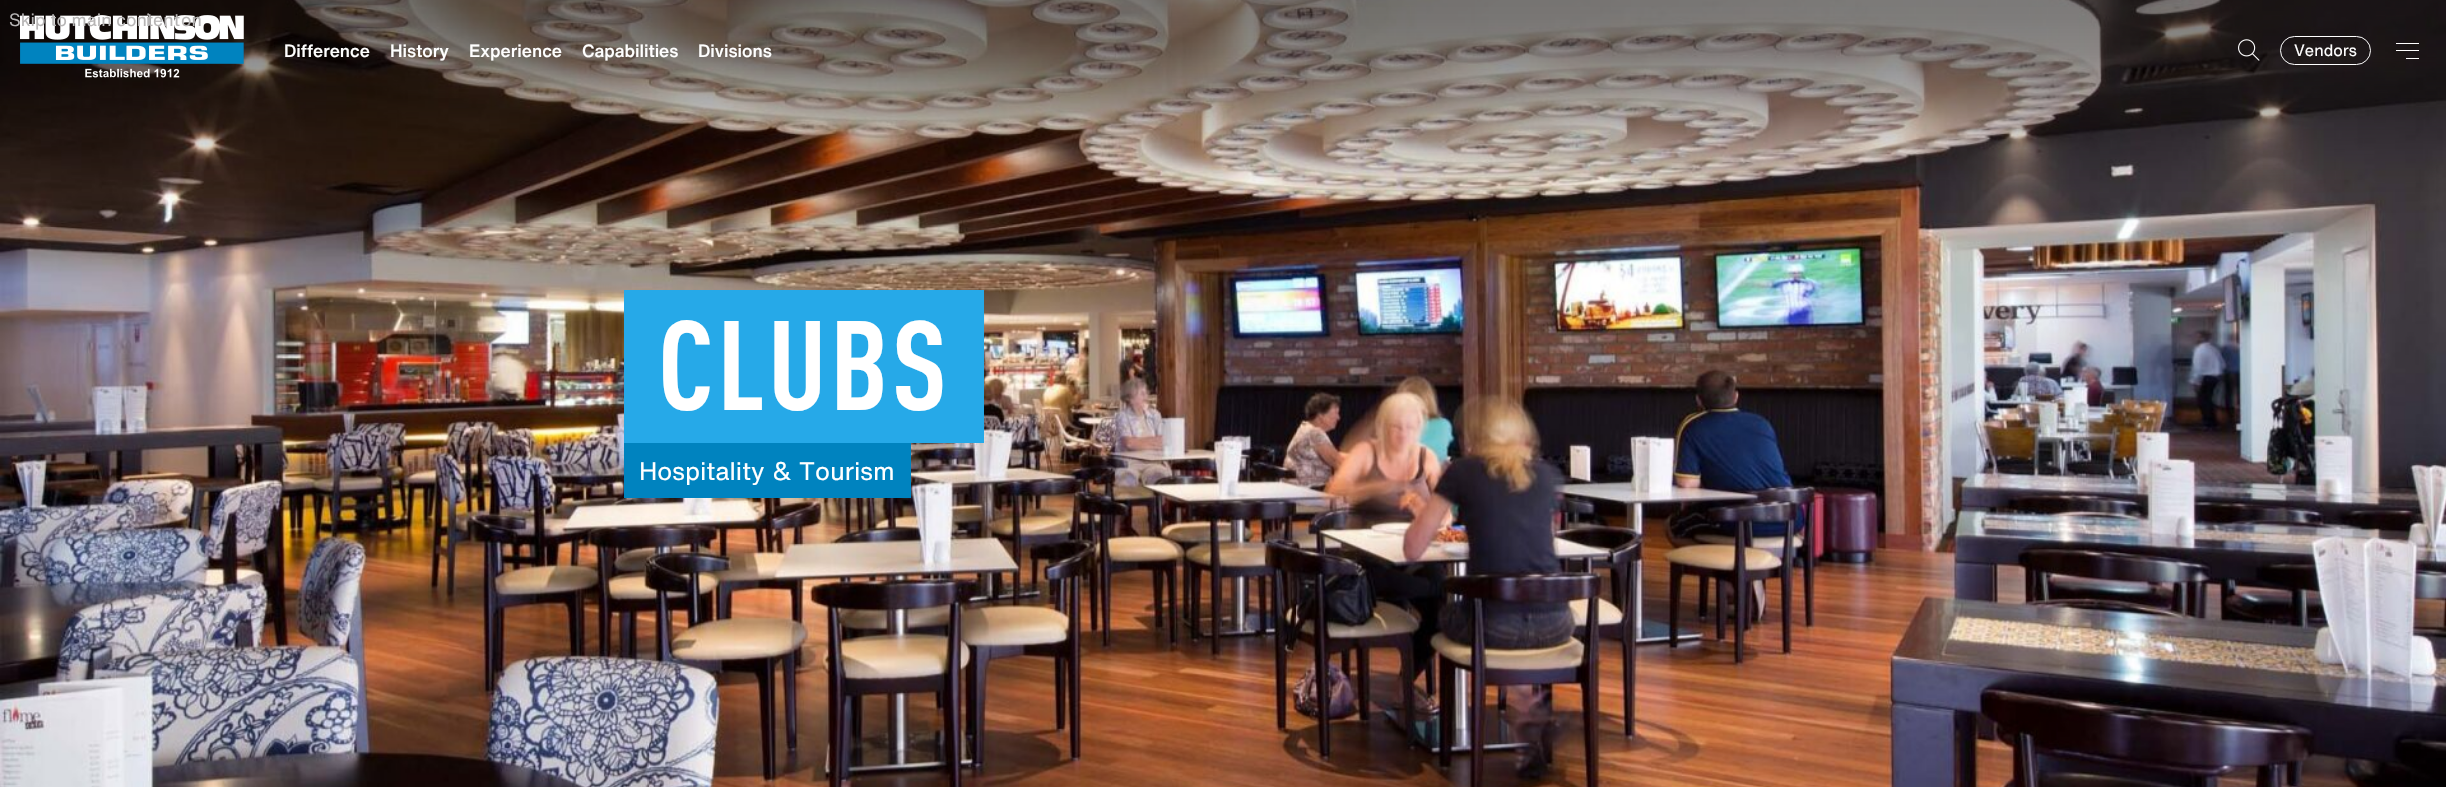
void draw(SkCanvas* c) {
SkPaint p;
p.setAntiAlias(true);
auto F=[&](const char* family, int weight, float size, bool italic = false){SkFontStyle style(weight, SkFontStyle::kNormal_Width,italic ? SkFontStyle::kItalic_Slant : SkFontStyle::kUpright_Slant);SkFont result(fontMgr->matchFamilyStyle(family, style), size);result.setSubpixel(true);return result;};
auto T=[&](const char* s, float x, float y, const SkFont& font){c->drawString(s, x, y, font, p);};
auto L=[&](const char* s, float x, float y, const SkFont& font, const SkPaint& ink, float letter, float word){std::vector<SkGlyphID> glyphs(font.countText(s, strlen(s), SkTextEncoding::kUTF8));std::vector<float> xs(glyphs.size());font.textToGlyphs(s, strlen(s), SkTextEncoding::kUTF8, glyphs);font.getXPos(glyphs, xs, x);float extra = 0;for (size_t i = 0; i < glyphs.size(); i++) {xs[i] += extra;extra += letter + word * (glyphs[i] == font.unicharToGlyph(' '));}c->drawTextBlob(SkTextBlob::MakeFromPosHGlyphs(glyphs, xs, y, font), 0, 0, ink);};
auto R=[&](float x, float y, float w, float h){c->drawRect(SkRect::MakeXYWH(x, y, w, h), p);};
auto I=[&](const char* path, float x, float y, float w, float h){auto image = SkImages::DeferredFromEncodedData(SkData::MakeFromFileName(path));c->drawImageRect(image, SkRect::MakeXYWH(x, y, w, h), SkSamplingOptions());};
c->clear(0xffffffff);
I("3.png",0,0,2446,787);
I("1.png",20,15,224,63);
auto f1 = F("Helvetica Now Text",400,17.5);
p.setColor(0xffb7b5b5);
T("Skip to main content",9,26,f1);
T("i",146,26,f1);
T("on",181,26,f1);
auto f2 = F("Helvetica Now Text",500,17.5);
p.setColor(0xffffffff);
T("Difference",284,57,f2);
T("History",390,57,f2);
T("Experience",469,57,f2);
T("Capabilities",582,57,f2);
T("Divisions",698,57,f2);
I("2.png",2238,39,22,22);
p.setStroke(true);
p.setStrokeWidth(1);
c->drawRoundRect(SkRect::MakeXYWH(2280.5,36.5,90,28),14,14,p);
auto f3 = F("Helvetica Now Text",400,16);
p.setStroke(false);
T("Vendors",2294,56,f3);
R(2396,43,23,1);
R(2396,50,23,1);
R(2406,58,13,1);
p.setColor(0xff26a9e8);
R(624,290,360,153);
auto f4 = F("DIN",700,125);
p.setColor(0xffffffff);
L("CLUBS",658,410,f4,p,3,0);
p.setColor(0xff0083bf);
R(624,443,287,55);
auto f5 = F("Helvetica Now Text",400,25);
p.setColor(0xffffffff);
T("Hospitality",639,480,f5);
T("&",772,480,f5);
T("Tourism",799,480,f5);
}
